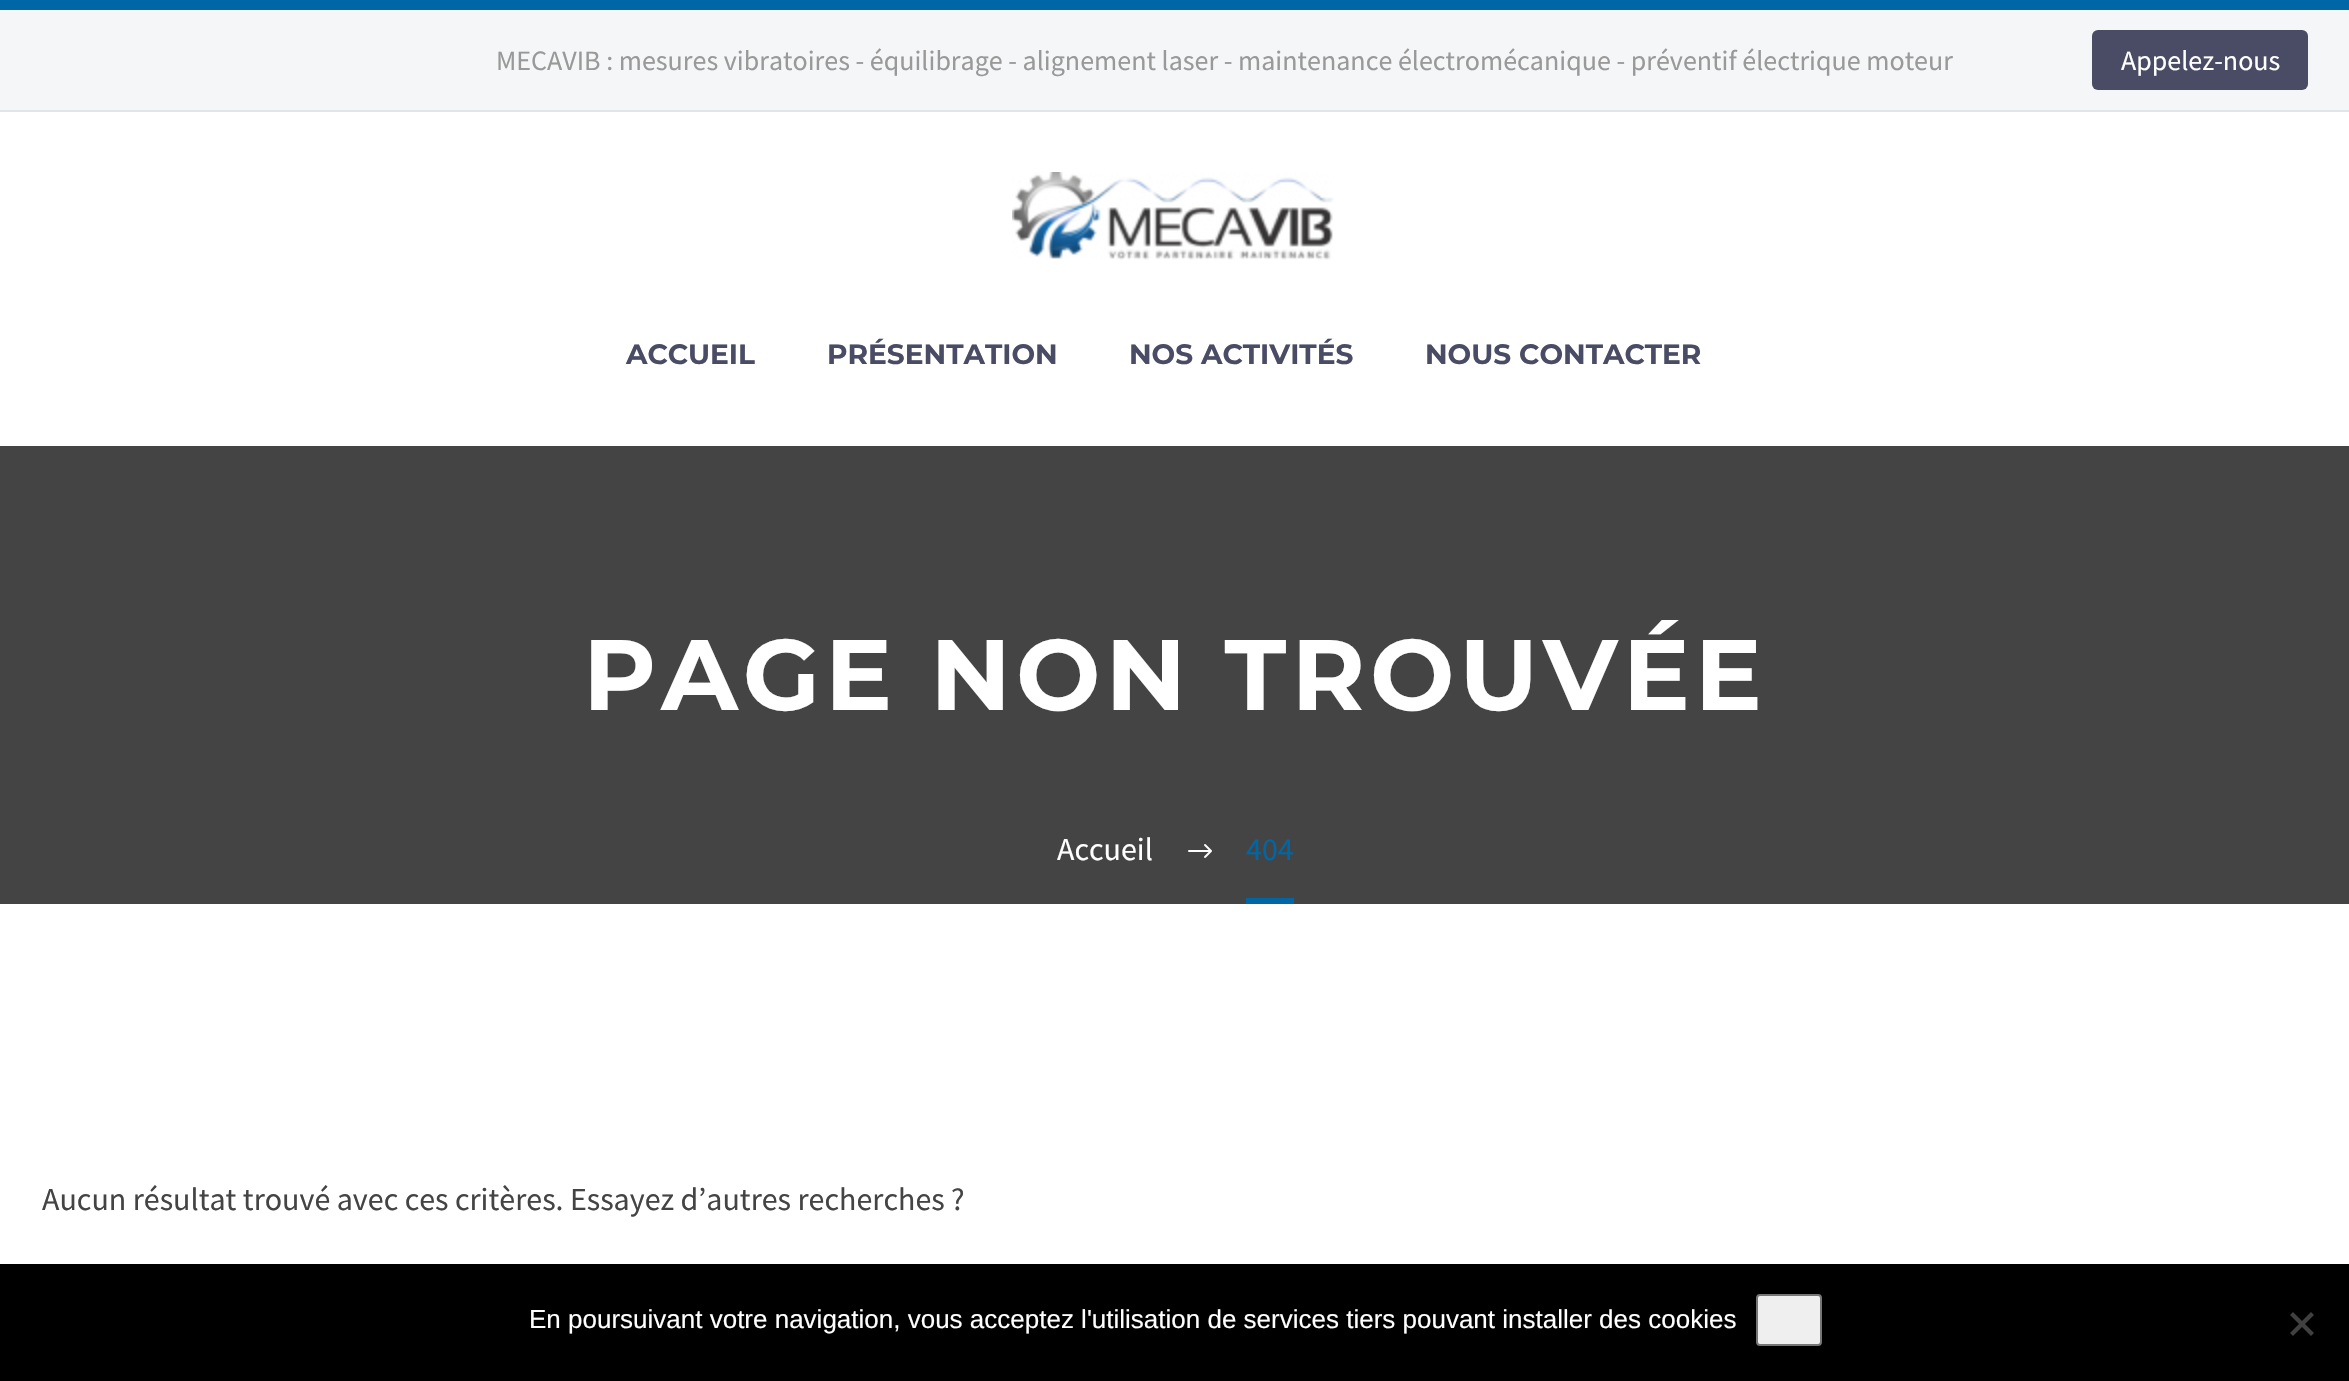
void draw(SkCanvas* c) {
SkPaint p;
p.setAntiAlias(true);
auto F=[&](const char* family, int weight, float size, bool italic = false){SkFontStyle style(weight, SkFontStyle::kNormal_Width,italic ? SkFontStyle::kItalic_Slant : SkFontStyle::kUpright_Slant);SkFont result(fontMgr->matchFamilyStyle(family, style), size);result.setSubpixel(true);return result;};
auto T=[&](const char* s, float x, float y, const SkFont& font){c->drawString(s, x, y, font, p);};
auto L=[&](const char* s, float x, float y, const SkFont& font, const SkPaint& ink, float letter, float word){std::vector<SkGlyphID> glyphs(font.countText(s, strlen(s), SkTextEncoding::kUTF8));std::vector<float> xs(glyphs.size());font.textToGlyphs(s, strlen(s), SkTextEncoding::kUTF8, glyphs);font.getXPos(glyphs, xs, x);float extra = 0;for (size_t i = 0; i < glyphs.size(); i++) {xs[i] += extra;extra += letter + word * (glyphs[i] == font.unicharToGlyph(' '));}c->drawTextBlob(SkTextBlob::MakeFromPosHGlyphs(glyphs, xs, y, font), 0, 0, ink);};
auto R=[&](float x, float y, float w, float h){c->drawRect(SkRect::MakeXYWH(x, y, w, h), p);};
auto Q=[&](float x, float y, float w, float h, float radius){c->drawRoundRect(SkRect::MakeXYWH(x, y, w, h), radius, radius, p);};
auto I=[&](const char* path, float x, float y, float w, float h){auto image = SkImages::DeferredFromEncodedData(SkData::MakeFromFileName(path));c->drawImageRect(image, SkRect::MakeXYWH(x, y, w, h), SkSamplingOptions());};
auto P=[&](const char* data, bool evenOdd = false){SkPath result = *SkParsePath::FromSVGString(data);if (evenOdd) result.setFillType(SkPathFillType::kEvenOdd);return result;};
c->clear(0xffffffff);
p.setColor(0xfff4f6f7);
R(0,10,2349,100);
p.setColor(0xff0066a5);
R(0,0,2349,10);
p.setColor(0xffdfe5e8);
R(0,110,2349,2);
auto f1 = F("Source Sans Pro",400,28);
p.setColor(0xff999999);
T("MECAVIB : mesures vibratoires - équilibrage - alignement laser - maintenance électromécanique - préventif électrique moteur",496,70,f1);
p.setColor(0xff494c64);
Q(2092,30,216,60,6);
p.setColor(0xffffffff);
T("Appelez-nous",2121,70,f1);
I("1.png",1012,172,322,88);
auto f2 = F("Montserrat",700,28);
p.setColor(0xff494c64);
T("ACCUEIL",626,364,f2);
T("PRÉSENTATION",827,364,f2);
T("NOS ACTIVITÉS",1129,364,f2);
T("NOUS CONTACTER",1425,364,f2);
p.setColor(0xff444444);
R(0,446,2349,458);
auto f3 = F("Montserrat",700,100);
p.setColor(0xffffffff);
L("PAGE NON TROUVÉE",583,710,f3,p,5,0);
auto f4 = F("Source Sans Pro",400,32);
T("Accueil",1057,860,f4);
I("2.png",1188,844,24,14);
p.setColor(0xff0066a5);
R(1246,898,48,6);
T("404",1246,860,f4);
p.setColor(0xff444444);
T("Aucun résultat trouvé avec ces critères. Essayez d’autres recherches ?",42,1210,f4);
p.setColor(0xff000000);
R(0,1264,2349,117);
auto f5 = F("Liberation Sans",400,26);
p.setColor(0xffffffff);
T("En poursuivant votre navigation, vous acceptez l'utilisation de services tiers pouvant installer des cookies",529,1328,f5);
p.setColor(0xffefefef);
c->drawRoundRect(SkRect::MakeXYWH(1757,1295,64,50),3,3,p);
p.setStroke(true);
p.setStrokeWidth(2);
p.setColor(0xff767676);
c->drawRoundRect(SkRect::MakeXYWH(1757,1295,64,50),3,3,p);
p.setStroke(false);
p.setColor(0xff404040);
c->drawPath(P("M2311 1312l3 3l-21 21l-3-3z"),p);
c->drawPath(P("M2290 1315l3-3l21 21l-3 3z"),p);
}
